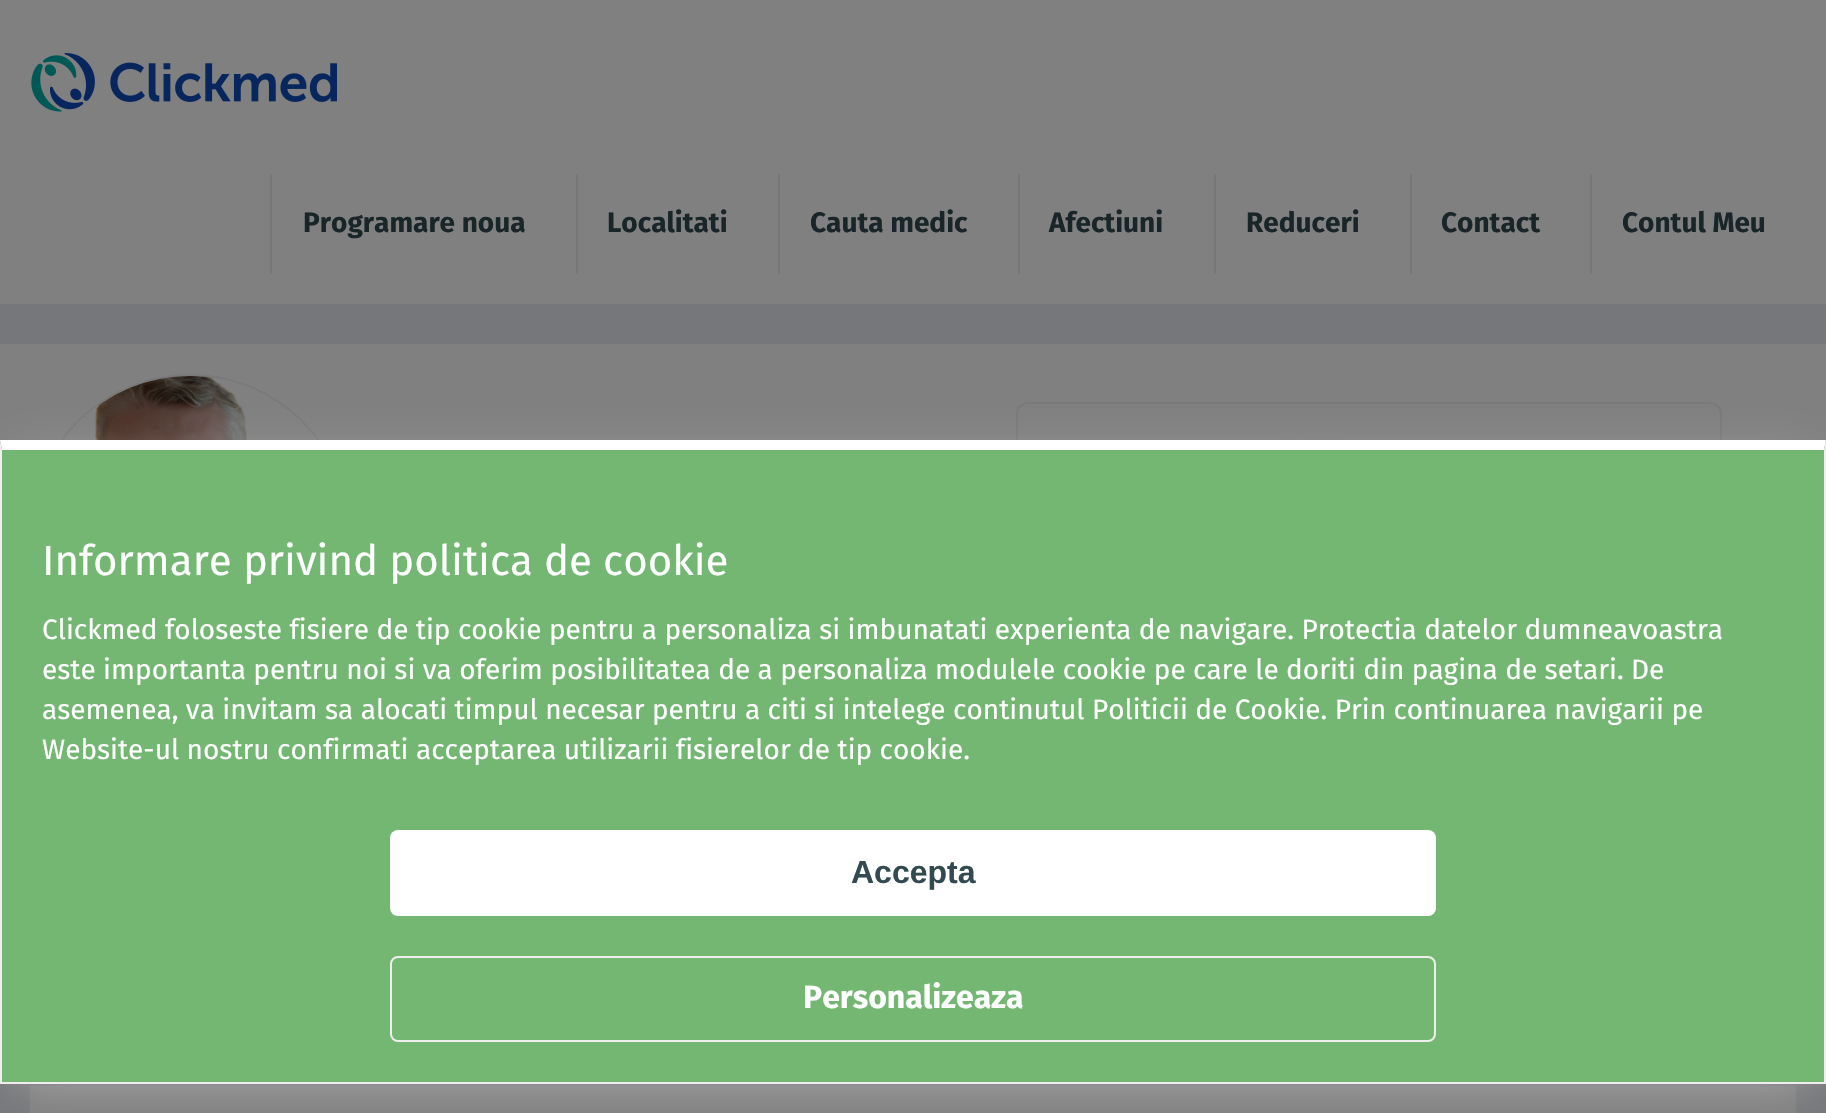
void draw(SkCanvas* c) {
SkPaint p;
p.setAntiAlias(true);
auto F=[&](const char* family, int weight, float size, bool italic = false){SkFontStyle style(weight, SkFontStyle::kNormal_Width,italic ? SkFontStyle::kItalic_Slant : SkFontStyle::kUpright_Slant);SkFont result(fontMgr->matchFamilyStyle(family, style), size);result.setSubpixel(true);return result;};
auto T=[&](const char* s, float x, float y, const SkFont& font){c->drawString(s, x, y, font, p);};
auto R=[&](float x, float y, float w, float h){c->drawRect(SkRect::MakeXYWH(x, y, w, h), p);};
auto Q=[&](float x, float y, float w, float h, float radius){c->drawRoundRect(SkRect::MakeXYWH(x, y, w, h), radius, radius, p);};
auto I=[&](const char* path, float x, float y, float w, float h){auto image = SkImages::DeferredFromEncodedData(SkData::MakeFromFileName(path));c->drawImageRect(image, SkRect::MakeXYWH(x, y, w, h), SkSamplingOptions());};
auto P=[&](const char* data, bool evenOdd = false){SkPath result = *SkParsePath::FromSVGString(data);if (evenOdd) result.setFillType(SkPathFillType::kEvenOdd);return result;};
c->clear(0xff76777a);
p.setColor(0xff808080);
R(0,0,1826,304);
I("1.png",31,52,306,60);
p.setColor(0xff777777);
R(270,174,2,100);
auto f1 = F("Fira Sans",700,28);
p.setColor(0xff192528);
T("Programare noua",303,232,f1);
p.setColor(0xff777777);
R(576,174,2,100);
p.setColor(0xff192528);
T("Localitati",607,232,f1);
p.setColor(0xff777777);
R(778,174,2,100);
p.setColor(0xff192528);
T("Cauta medic",810,232,f1);
p.setColor(0xff777777);
R(1018,174,2,100);
p.setColor(0xff192528);
T("Afectiuni",1049,232,f1);
p.setColor(0xff777777);
R(1214,174,2,100);
p.setColor(0xff192528);
T("Reduceri",1246,232,f1);
p.setColor(0xff777777);
R(1410,174,2,100);
p.setColor(0xff192528);
T("Contact",1441,232,f1);
p.setColor(0xff777777);
R(1590,174,2,100);
p.setColor(0xff192528);
T("Contul Meu",1622,232,f1);
p.setColor(0xff808080);
R(0,344,1826,106);
p.setStroke(true);
p.setStrokeWidth(2);
p.setColor(0xff797979);
c->drawCircle(190,534,159,p);
I("2.png",76,376,241,64);
I("3.png",1253,439,236,1);
c->drawRoundRect(SkRect::MakeXYWH(1017,403,704,212),11,11,p);
p.setStroke(false);
p.setColor(0xff808080);
R(30,1086,1766,27);
p.setColor(0xffb2b2b2);
p.setMaskFilter(SkMaskFilter::MakeBlur(kNormal_SkBlurStyle, 25));
c->drawRect(SkRect::MakeXYWH(16,466,1794,612),p);
p.setMaskFilter(nullptr);
p.setColor(0xff73b773);
R(2,450,1822,632);
p.setColor(0xffffffff);
c->drawPath(P("M0 440h1826l-2 10h-1822z"),p);
p.setColor(0xffeeeeee);
c->drawPath(P("M1826 440v644l-2-2v-632z"),p);
R(0,1082,1826,2);
c->drawPath(P("M0 1084v-644l2 10v632z"),p);
auto f2 = F("Fira Sans",400,42);
p.setColor(0xffffffff);
T("Informare privind politica de cookie",42,575,f2);
auto f3 = F("Fira Sans",400,28);
T("Clickmed foloseste fisiere de tip cookie pentru a personaliza si imbunatati experienta de navigare. Protectia datelor dumneavoastra",42,639,f3);
T("este importanta pentru noi si va oferim posibilitatea de a personaliza modulele cookie pe care le doriti din pagina de setari. De",42,679,f3);
T("asemenea, va invitam sa alocati timpul necesar pentru a citi si intelege continutul Politicii de Cookie. Prin continuarea navigarii pe",42,719,f3);
T("Website-ul nostru confirmati acceptarea utilizarii fisierelor de tip cookie.",42,759,f3);
Q(390,830,1046,86,8);
auto f4 = F("Liberation Sans",700,32);
p.setColor(0xff324a50);
T("Accepta",851,883,f4);
p.setStroke(true);
p.setColor(0xffeeeeee);
c->drawRoundRect(SkRect::MakeXYWH(391,957,1044,84),7,7,p);
auto f5 = F("Fira Sans",700,32);
p.setStroke(false);
p.setColor(0xffffffff);
T("Personalizeaza",803,1008,f5);
}
